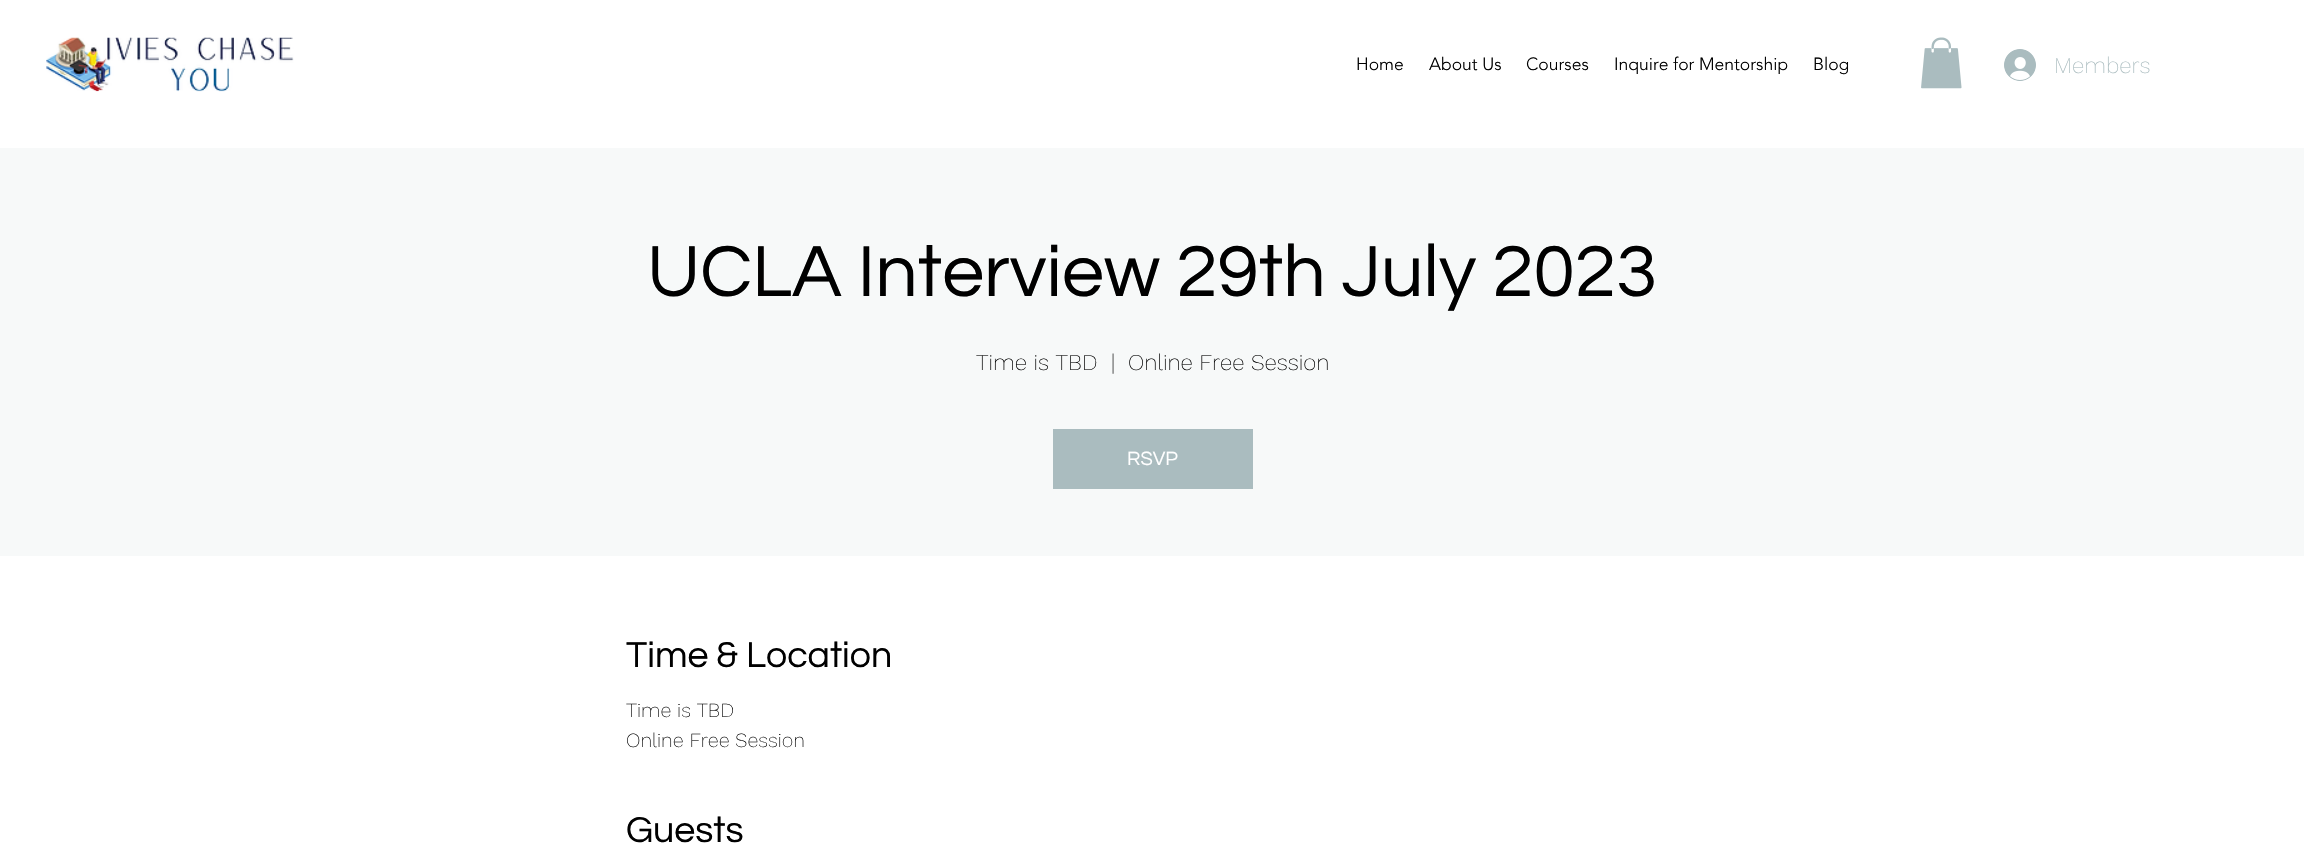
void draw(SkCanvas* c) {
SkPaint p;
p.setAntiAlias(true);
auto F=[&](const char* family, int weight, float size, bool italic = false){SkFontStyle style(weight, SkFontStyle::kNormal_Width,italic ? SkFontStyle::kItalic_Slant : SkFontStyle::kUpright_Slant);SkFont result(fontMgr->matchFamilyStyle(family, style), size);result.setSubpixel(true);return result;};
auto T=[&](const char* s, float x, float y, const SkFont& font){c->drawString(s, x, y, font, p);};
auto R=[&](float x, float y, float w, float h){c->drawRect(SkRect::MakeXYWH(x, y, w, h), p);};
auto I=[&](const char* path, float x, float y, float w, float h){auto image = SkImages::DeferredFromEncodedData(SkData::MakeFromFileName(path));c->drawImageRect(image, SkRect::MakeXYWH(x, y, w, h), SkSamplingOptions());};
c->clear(0xffffffff);
I("1.png",46,37,248,55);
auto f1 = F("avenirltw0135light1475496",300,17.5);
p.setColor(0xff000000);
T("Home",1356,70,f1);
T("About Us",1429,70,f1);
T("Courses",1526,70,f1);
T("Inquire for Mentorship",1614,70,f1);
T("Blog",1813,70,f1);
I("2.png",1921,37,41,52);
I("3.png",2004,49,32,32);
auto f2 = F("Work Sans",200,22.5);
p.setColor(0xffaabcbf);
T("Members",2054,73,f2);
p.setColor(0xfff7f9f9);
R(0,148,2304,408);
auto f3 = F("Questrial",400,75);
p.setColor(0xff000000);
T("UCLA Interview 29th July 2023",647,296,f3);
T("Time is TBD",976,370,f2);
T("|",1111,370,f2);
T("Online Free Session",1128,370,f2);
p.setColor(0xffaabcbf);
R(1053,429,200,60);
auto f4 = F("Questrial",400,20);
p.setColor(0xffffffff);
T("RSVP",1127,465,f4);
auto f5 = F("Questrial",400,37.5);
p.setColor(0xff000000);
T("Time & Location",626,667,f5);
auto f6 = F("Work Sans",200,20);
T("Time is TBD",626,717,f6);
T("Online Free Session",626,747,f6);
T("Guests",626,842,f5);
}
